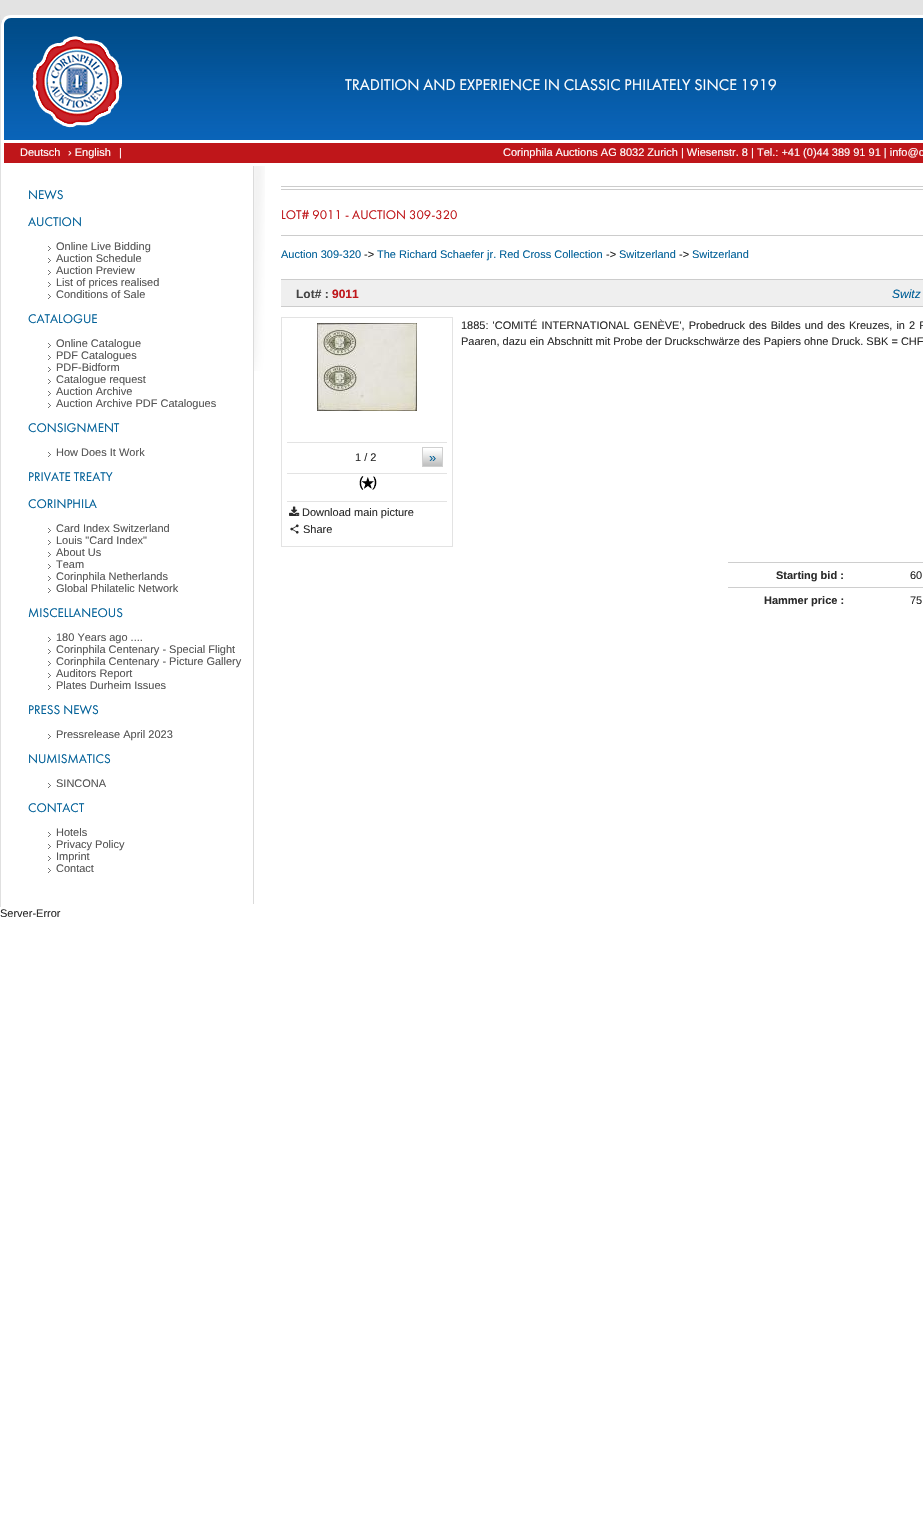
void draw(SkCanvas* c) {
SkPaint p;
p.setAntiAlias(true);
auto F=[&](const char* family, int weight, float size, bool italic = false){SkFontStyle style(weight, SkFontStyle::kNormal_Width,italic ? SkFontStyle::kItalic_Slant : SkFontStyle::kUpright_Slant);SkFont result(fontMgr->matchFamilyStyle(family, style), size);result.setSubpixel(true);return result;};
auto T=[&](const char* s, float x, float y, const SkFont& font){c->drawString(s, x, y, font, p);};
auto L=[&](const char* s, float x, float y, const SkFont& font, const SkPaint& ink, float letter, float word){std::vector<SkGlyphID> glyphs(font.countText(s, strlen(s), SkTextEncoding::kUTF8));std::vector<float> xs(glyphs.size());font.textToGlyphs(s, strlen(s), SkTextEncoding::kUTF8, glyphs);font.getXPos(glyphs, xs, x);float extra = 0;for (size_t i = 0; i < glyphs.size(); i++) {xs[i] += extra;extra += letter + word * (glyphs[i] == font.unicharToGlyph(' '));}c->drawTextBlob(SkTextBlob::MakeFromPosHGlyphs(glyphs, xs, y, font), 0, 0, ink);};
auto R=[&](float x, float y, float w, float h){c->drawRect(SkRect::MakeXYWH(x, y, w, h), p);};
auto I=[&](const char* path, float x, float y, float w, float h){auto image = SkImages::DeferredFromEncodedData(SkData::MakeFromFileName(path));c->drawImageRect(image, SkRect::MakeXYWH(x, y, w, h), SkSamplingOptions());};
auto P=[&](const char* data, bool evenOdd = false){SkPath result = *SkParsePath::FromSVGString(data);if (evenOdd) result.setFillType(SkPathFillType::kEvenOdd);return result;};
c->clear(0xffffffff);
I("1.png",0,0,923,25);
p.setColor(0xffe0e0e0);
R(0,15,1,892);
I("2.png",1,18,922,122);
p.setColor(0xffffffff);
c->drawPath(P("M11 15h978c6 0 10 4 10 10v115h-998v-115c0-6 4-10 10-10zm0 3h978c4 0 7 3 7 7v115h-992v-115c0-4 3-7 7-7z",true),p);
I("3.png",32,36,91,92);
auto f1 = F("Futura PT",400,16);
T("TRADITION AND EXPERIENCE IN CLASSIC PHILATELY SINCE 1919",345,90,f1);
p.setColor(0xffbf161a);
R(4,143,919,20);
auto f2 = F("Liberation Sans",400,11);
p.setColor(0xffffffff);
T("Deutsch",20,156,f2);
T("› English",68,156,f2);
T("|",119,156,f2);
T("Corinphila Auctions AG 8032 Zurich | Wiesenstr. 8 | Tel.: +41 (0)44 389 91 91 | info@c",503,156,f2);
p.setColor(0xffdbdbdb);
R(253,166,1,741);
p.setColor(0xffffffff);
R(253,904,1,3);
auto f3 = F("Futura PT",400,13);
p.setColor(0xff016098);
T("NEWS",28,199,f3);
T("AUCTION",28,226,f3);
I("4.png",48,246,3,5);
p.setColor(0xff555555);
T("Online Live Bidding",56,250,f2);
I("4.png",48,258,3,5);
T("Auction Schedule",56,262,f2);
I("4.png",48,270,3,5);
T("Auction Preview",56,274,f2);
I("4.png",48,282,3,5);
T("List of prices realised",56,286,f2);
I("4.png",48,294,3,5);
T("Conditions of Sale",56,298,f2);
p.setColor(0xff016098);
T("CATALOGUE",28,323,f3);
I("4.png",48,343,3,5);
p.setColor(0xff555555);
T("Online Catalogue",56,347,f2);
I("4.png",48,355,3,5);
T("PDF Catalogues",56,359,f2);
I("4.png",48,367,3,5);
T("PDF-Bidform",56,371,f2);
I("4.png",48,379,3,5);
T("Catalogue request",56,383,f2);
I("4.png",48,391,3,5);
T("Auction Archive",56,395,f2);
I("4.png",48,403,3,5);
T("Auction Archive PDF Catalogues",56,407,f2);
p.setColor(0xff016098);
T("CONSIGNMENT",28,432,f3);
I("4.png",48,452,3,5);
p.setColor(0xff555555);
T("How Does It Work",56,456,f2);
p.setColor(0xff016098);
T("PRIVATE TREATY",28,481,f3);
T("CORINPHILA",28,508,f3);
I("4.png",48,528,3,5);
p.setColor(0xff555555);
T("Card Index Switzerland",56,532,f2);
I("4.png",48,540,3,5);
T("Louis \"Card Index\"",56,544,f2);
I("4.png",48,552,3,5);
T("About Us",56,556,f2);
I("4.png",48,564,3,5);
T("Team",56,568,f2);
I("4.png",48,576,3,5);
T("Corinphila Netherlands",56,580,f2);
I("4.png",48,588,3,5);
T("Global Philatelic Network",56,592,f2);
p.setColor(0xff016098);
T("MISCELLANEOUS",28,617,f3);
I("4.png",48,637,3,5);
p.setColor(0xff555555);
T("180 Years ago ....",56,641,f2);
I("4.png",48,649,3,5);
T("Corinphila Centenary - Special Flight",56,653,f2);
I("4.png",48,661,3,5);
T("Corinphila Centenary - Picture Gallery",56,665,f2);
I("4.png",48,673,3,5);
T("Auditors Report",56,677,f2);
I("4.png",48,685,3,5);
T("Plates Durheim Issues",56,689,f2);
p.setColor(0xff016098);
T("PRESS NEWS",28,714,f3);
I("4.png",48,734,3,5);
p.setColor(0xff555555);
T("Pressrelease April 2023",56,738,f2);
p.setColor(0xff016098);
T("NUMISMATICS",28,763,f3);
I("4.png",48,783,3,5);
p.setColor(0xff555555);
T("SINCONA",56,787,f2);
p.setColor(0xff016098);
T("CONTACT",28,812,f3);
I("4.png",48,832,3,5);
p.setColor(0xff555555);
T("Hotels",56,836,f2);
I("4.png",48,844,3,5);
T("Privacy Policy",56,848,f2);
I("4.png",48,856,3,5);
T("Imprint",56,860,f2);
I("4.png",48,868,3,5);
T("Contact",56,872,f2);
I("5.png",254,166,11,205);
p.setColor(0xffcccccc);
R(281,186,642,1);
R(281,189,642,1);
R(281,235,642,1);
p.setColor(0xffbf161a);
T("LOT# 9011 - AUCTION 309-320",281,219,f3);
p.setColor(0xff016098);
T("Auction 309-320",281,258,f2);
p.setColor(0xff2b2b2b);
T("->",364,258,f2);
p.setColor(0xff016098);
T("The Richard Schaefer jr. Red Cross Collection",377,258,f2);
p.setColor(0xff2b2b2b);
T("->",606,258,f2);
p.setColor(0xff016098);
T("Switzerland",619,258,f2);
p.setColor(0xff2b2b2b);
T("->",679,258,f2);
p.setColor(0xff016098);
T("Switzerland",692,258,f2);
p.setColor(0xffefefef);
R(281,280,642,26);
p.setColor(0xffcccccc);
R(281,279,642,1);
R(281,306,642,1);
auto f4 = F("Liberation Sans",700,12);
p.setColor(0xff444444);
T("Lot# :",296,298,f4);
p.setColor(0xffbf161a);
T("9011",332,298,f4);
auto f5 = F("Liberation Sans",400,12,true);
p.setColor(0xff016098);
T("Switz",892,298,f5);
p.setStroke(true);
p.setStrokeWidth(1);
p.setColor(0xffe3e3e3);
c->drawRect(SkRect::MakeXYWH(281.5,317.5,171,229),p);
I("6.png",317,323,100,88);
p.setStroke(false);
R(287,442,160,1);
p.setColor(0xff2b2b2b);
T("1 / 2",355,461,f2);
I("7.png",423,448,19,18);
p.setStroke(true);
p.setColor(0xffd0d0d0);
c->drawRect(SkRect::MakeXYWH(422.5,447.5,20,19),p);
auto f6 = F("Liberation Sans",400,13);
p.setStroke(false);
p.setColor(0xff016098);
T("»",429,462,f6);
p.setColor(0xffe3e3e3);
R(287,473,160,1);
I("8.png",359,476,18,14);
R(287,501,160,1);
I("9.png",289,506,11,10);
p.setColor(0xff2b2b2b);
T("Download main picture",302,516,f2);
I("10.png",290,524,9,10);
T("Share",303,533,f2);
L("1885: 'COMITÉ INTERNATIONAL GENÈVE', Probedruck des Bildes und des Kreuzes, in 2 P",461,329,f2,p,0,1);
T("Paaren, dazu ein Abschnitt mit Probe der Druckschwärze des Papiers ohne Druck. SBK = CHF",461,345,f2);
p.setColor(0xffcecece);
R(728,562,195,1);
R(728,587,195,1);
auto f7 = F("Liberation Sans",700,11);
p.setColor(0xff2b2b2b);
T("Starting bid :",776,579,f7);
T("60",910,579,f2);
T("Hammer price :",764,604,f7);
T("75",910,604,f2);
T("Server-Error",0,917,f2);
}
